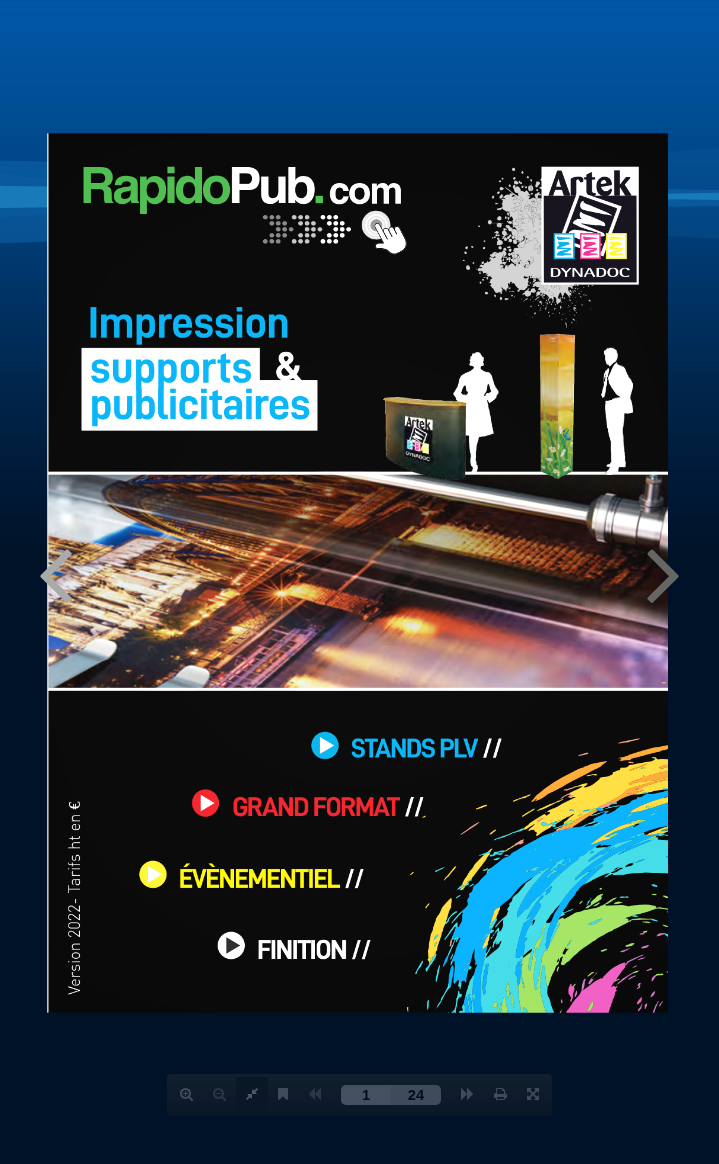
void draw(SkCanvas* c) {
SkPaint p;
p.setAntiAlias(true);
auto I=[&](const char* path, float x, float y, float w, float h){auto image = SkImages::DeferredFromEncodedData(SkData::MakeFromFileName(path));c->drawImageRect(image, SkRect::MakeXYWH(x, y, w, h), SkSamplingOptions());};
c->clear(0xff001228);
I("1.png",0,0,719,545);
I("2.png",40,133,639,983);
}
